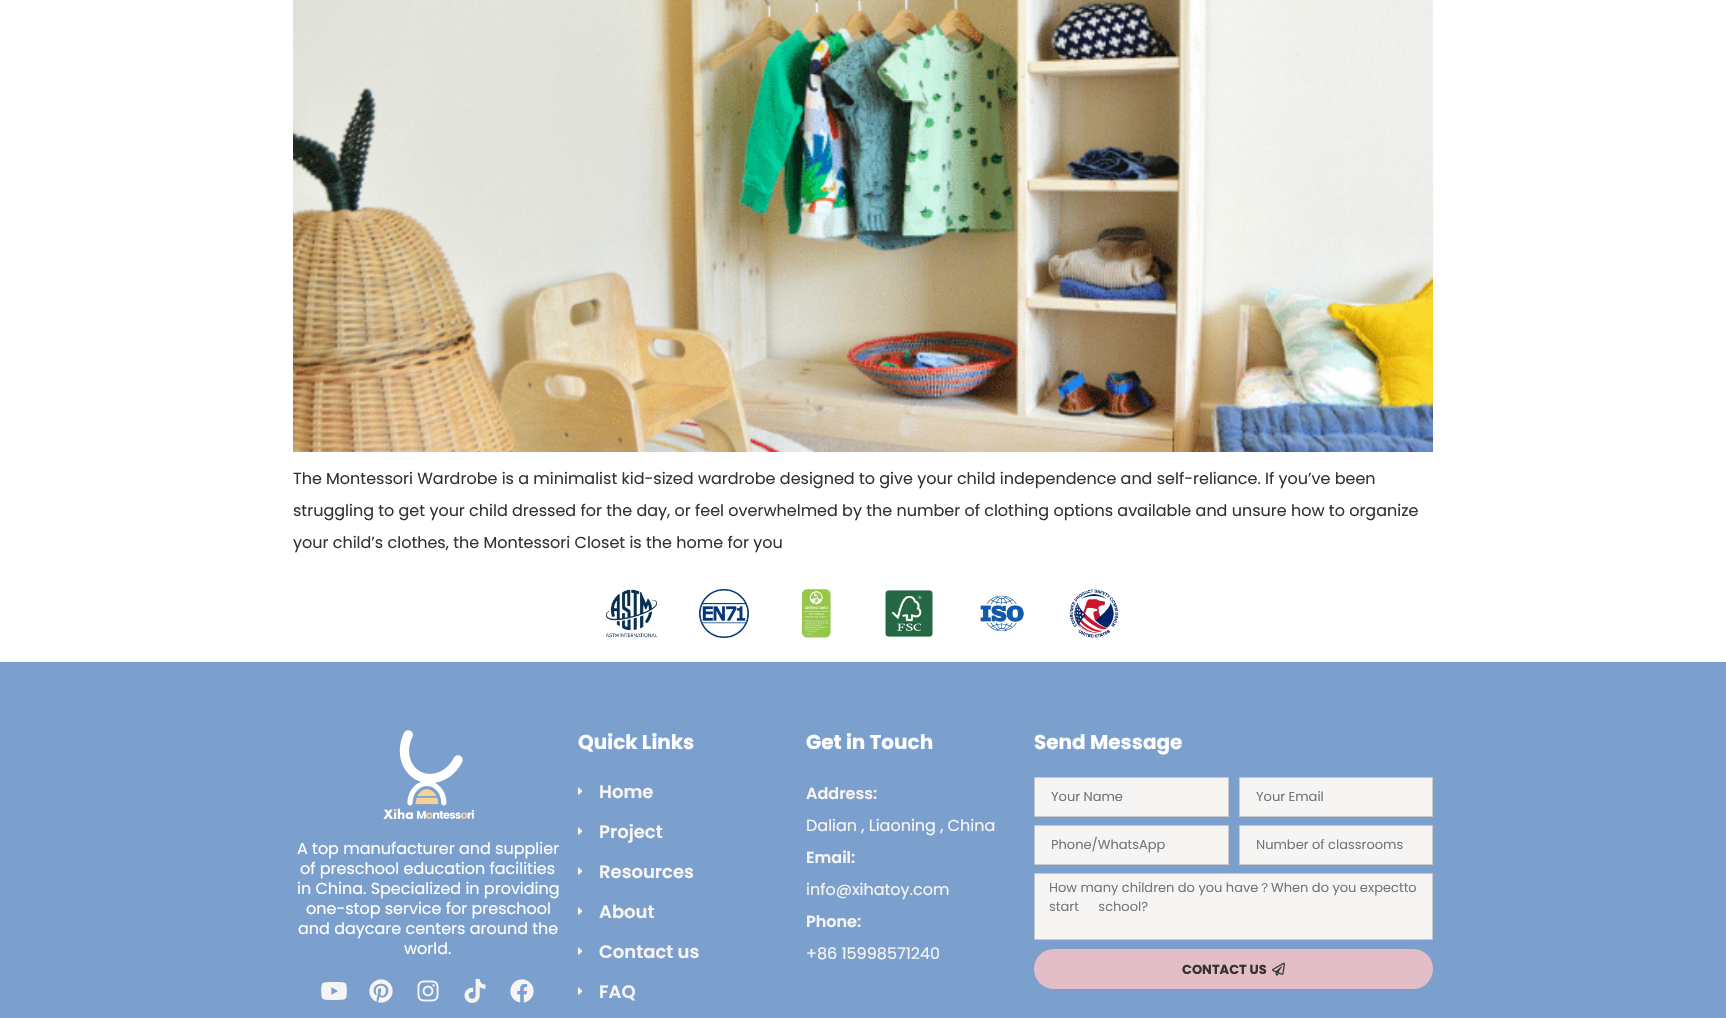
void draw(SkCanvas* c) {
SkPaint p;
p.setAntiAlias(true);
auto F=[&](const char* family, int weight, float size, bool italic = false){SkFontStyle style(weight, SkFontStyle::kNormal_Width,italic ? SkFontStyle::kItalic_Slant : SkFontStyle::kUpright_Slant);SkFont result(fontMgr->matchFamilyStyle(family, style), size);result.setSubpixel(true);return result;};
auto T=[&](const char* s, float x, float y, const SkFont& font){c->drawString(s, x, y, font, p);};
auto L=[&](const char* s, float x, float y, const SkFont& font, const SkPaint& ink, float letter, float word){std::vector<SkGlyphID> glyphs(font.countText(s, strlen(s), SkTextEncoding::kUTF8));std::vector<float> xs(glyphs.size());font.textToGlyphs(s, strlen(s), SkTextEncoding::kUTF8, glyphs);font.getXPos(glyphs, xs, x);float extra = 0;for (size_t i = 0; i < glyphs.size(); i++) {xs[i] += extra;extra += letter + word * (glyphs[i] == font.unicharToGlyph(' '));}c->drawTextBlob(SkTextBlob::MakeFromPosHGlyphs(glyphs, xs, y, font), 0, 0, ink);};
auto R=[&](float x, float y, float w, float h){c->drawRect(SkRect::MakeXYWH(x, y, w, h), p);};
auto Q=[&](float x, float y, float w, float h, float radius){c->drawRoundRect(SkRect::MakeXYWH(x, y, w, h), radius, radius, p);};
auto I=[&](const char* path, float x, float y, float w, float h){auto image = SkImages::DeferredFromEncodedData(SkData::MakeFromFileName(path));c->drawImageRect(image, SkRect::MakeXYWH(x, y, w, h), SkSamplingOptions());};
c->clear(0xffffffff);
I("1.png",293,0,1140,452);
auto f1 = F("Poppins",400,16);
p.setColor(0xff333333);
T("The Montessori Wardrobe is a minimalist kid-sized wardrobe designed to give your child independence and self-reliance. If you’ve been",293,484,f1);
T("struggling to get your child dressed for the day, or feel overwhelmed by the number of clothing options available and unsure how to organize",293,516,f1);
T("your child’s clothes, the Montessori Closet is the home for you",293,548,f1);
I("2.png",605,589,53,49);
I("3.png",699,589,50,49);
I("4.png",801,589,31,49);
I("5.png",885,590,48,47);
I("6.png",980,595,44,37);
I("7.png",1069,589,50,49);
p.setColor(0xff7ca0ce);
R(0,662,1726,356);
I("8.png",383,730,91,90);
p.setColor(0xffffffff);
T("A top manufacturer and supplier",297,854,f1);
T("of preschool education facilities",300,874,f1);
T("in China. Specialized in providing",297,894,f1);
T("one-stop service for preschool",306,914,f1);
T("and daycare centers around the",298,934,f1);
T("world.",404,954,f1);
I("9.png",321,982,26,18);
I("10.png",369,979,24,24);
I("11.png",417,980,22,22);
I("12.png",464,979,22,24);
I("13.png",510,979,24,24);
auto f2 = F("Poppins",700,20);
T("Quick Links",578,749,f2);
I("14.png",578,787,5,8);
auto f3 = F("Poppins",600,18);
p.setColor(0xfff6f5f3);
T("Home",599,798,f3);
I("14.png",578,827,5,8);
T("Project",599,838,f3);
I("14.png",578,867,5,8);
T("Resources",599,878,f3);
I("14.png",578,907,5,8);
T("About",599,918,f3);
I("14.png",578,947,5,8);
T("Contact us",599,958,f3);
I("14.png",578,987,5,8);
T("FAQ",599,998,f3);
p.setColor(0xffffffff);
T("Get in Touch",806,749,f2);
auto f4 = F("Poppins",600,16);
p.setColor(0xfff6f5f3);
T("Address:",806,799,f4);
T("Dalian , Liaoning , China",806,831,f1);
T("Email:",806,863,f4);
T("info@xihatoy.com",806,895,f1);
T("Phone:",806,927,f4);
T("+86 15998571240",806,959,f1);
p.setColor(0xffffffff);
T("Send Message",1034,749,f2);
p.setColor(0xfff6f5f3);
c->drawRect(SkRect::MakeXYWH(1034.5,777.5,194,39),p);
p.setStroke(true);
p.setStrokeWidth(1);
p.setColor(0xffc9c9c9);
c->drawRect(SkRect::MakeXYWH(1034.5,777.5,194,39),p);
auto f5 = F("Poppins",400,13);
p.setStroke(false);
p.setColor(0xff757677);
T("Your Name",1051,801,f5);
p.setColor(0xfff6f5f3);
c->drawRect(SkRect::MakeXYWH(1239.5,777.5,193,39),p);
p.setStroke(true);
p.setColor(0xffc9c9c9);
c->drawRect(SkRect::MakeXYWH(1239.5,777.5,193,39),p);
p.setStroke(false);
p.setColor(0xff757677);
T("Your Email",1256,801,f5);
p.setColor(0xfff6f5f3);
c->drawRect(SkRect::MakeXYWH(1034.5,825.5,194,39),p);
p.setStroke(true);
p.setColor(0xffc9c9c9);
c->drawRect(SkRect::MakeXYWH(1034.5,825.5,194,39),p);
p.setStroke(false);
p.setColor(0xff757677);
T("Phone/WhatsApp",1051,849,f5);
p.setColor(0xfff6f5f3);
c->drawRect(SkRect::MakeXYWH(1239.5,825.5,193,39),p);
p.setStroke(true);
p.setColor(0xffc9c9c9);
c->drawRect(SkRect::MakeXYWH(1239.5,825.5,193,39),p);
p.setStroke(false);
p.setColor(0xff757677);
T("Number of classrooms",1256,849,f5);
p.setColor(0xfff6f5f3);
c->drawRect(SkRect::MakeXYWH(1034.5,873.5,398,66),p);
p.setStroke(true);
p.setColor(0xffc9c9c9);
c->drawRect(SkRect::MakeXYWH(1034.5,873.5,398,66),p);
p.setStroke(false);
p.setColor(0xff757677);
T("How many children do you have",1049,892,f5);
auto f6 = F("WenQuanYi Zen Hei",500,13);
T("？",1258,892,f6);
T("When do you expectto",1271,892,f5);
L("start school?",1049,911,f5,p,0,16);
p.setColor(0xffe3bec6);
Q(1034,949,399,40,20);
auto f7 = F("Poppins",700,13);
p.setColor(0xff333333);
T("CONTACT US",1182,974,f7);
I("15.png",1272,962,13,14);
}
